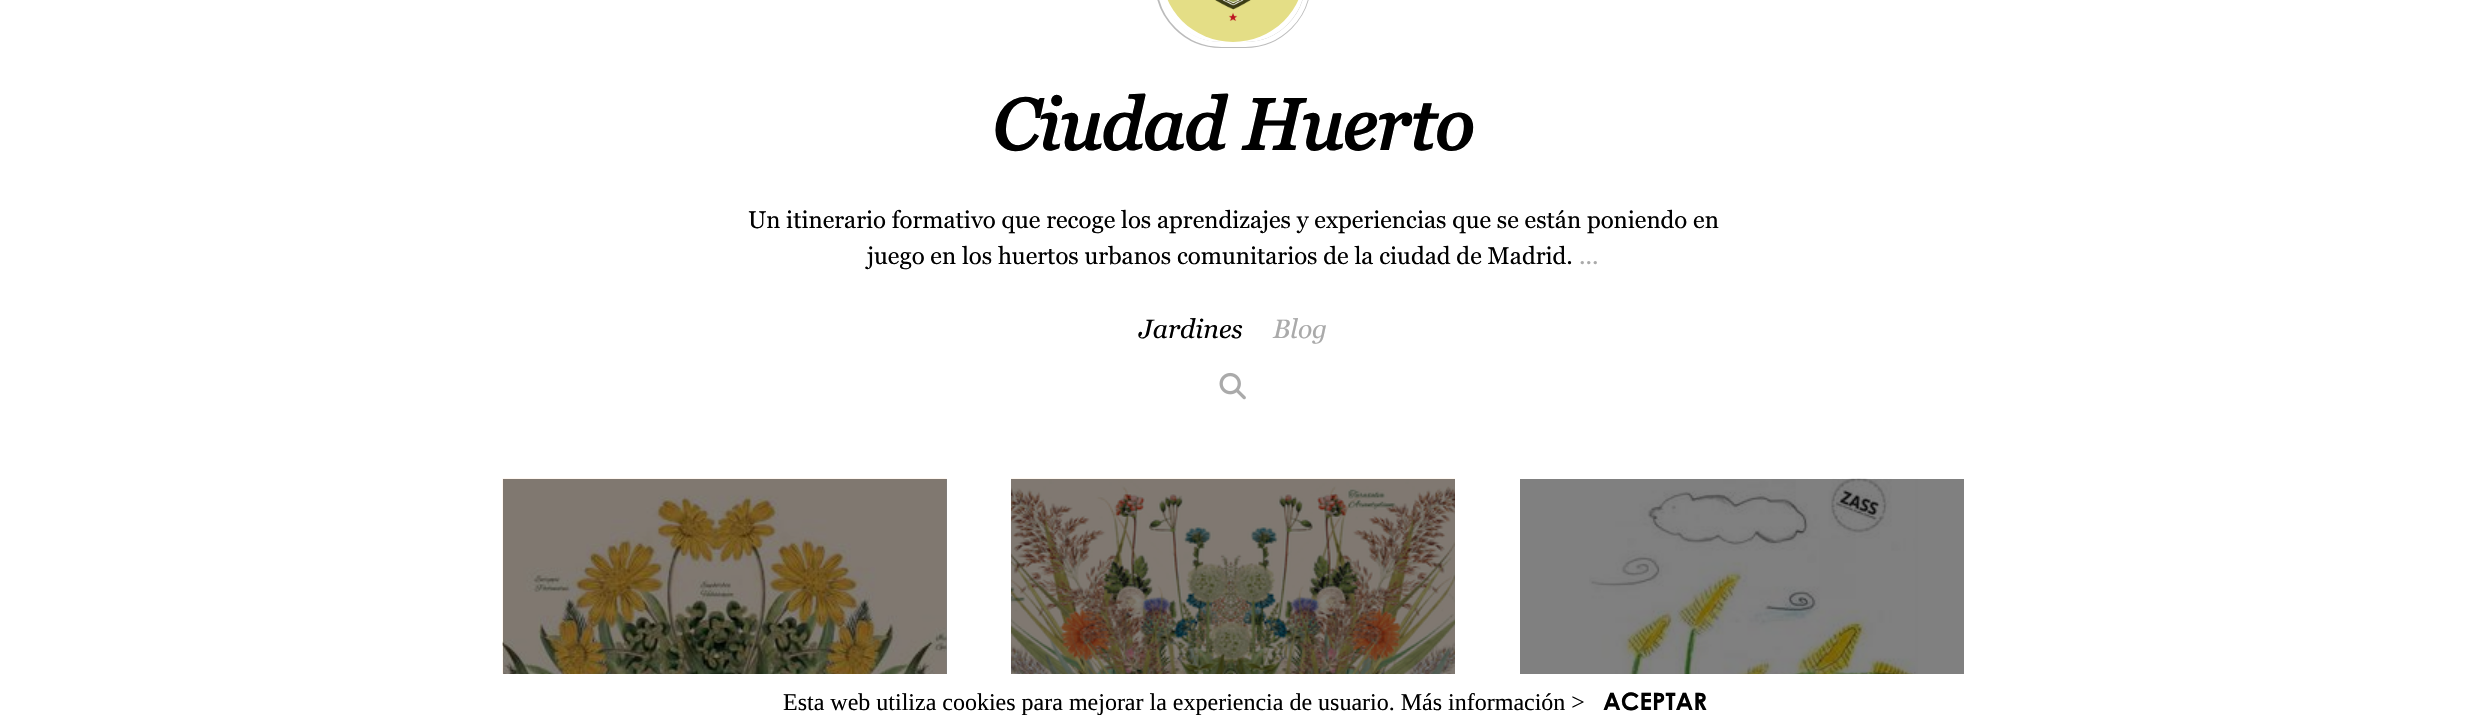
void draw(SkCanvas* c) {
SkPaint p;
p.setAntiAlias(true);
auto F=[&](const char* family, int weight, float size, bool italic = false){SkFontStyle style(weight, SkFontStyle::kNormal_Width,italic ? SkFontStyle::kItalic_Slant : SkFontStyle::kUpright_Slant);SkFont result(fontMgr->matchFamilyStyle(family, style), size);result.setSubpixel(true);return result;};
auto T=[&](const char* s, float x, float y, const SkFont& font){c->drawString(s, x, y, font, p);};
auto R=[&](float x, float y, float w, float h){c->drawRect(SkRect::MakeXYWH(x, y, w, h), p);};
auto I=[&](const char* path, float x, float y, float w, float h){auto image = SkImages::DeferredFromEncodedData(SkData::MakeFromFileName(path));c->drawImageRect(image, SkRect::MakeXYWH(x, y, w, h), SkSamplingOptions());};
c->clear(0xffffffff);
p.setColor(0xff808080);
R(1520,479,444,195);
R(946,479,1,195);
p.setStroke(true);
p.setStrokeWidth(6);
p.setColor(0xffbbbbbb);
c->drawRoundRect(SkRect::MakeXYWH(1158,-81,150,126),75,75,p);
p.setStrokeWidth(5);
p.setColor(0xffffffff);
c->drawRoundRect(SkRect::MakeXYWH(1159.5,-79.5,148,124),74,74,p);
I("1.png",1167,0,132,42);
auto f1 = F("Georgia",700,72,true);
p.setStroke(false);
p.setColor(0xff000000);
T("Ciudad Huerto",992,150,f1);
auto f2 = F("Georgia",400,24);
T("Un itinerario formativo que recoge los aprendizajes y experiencias que se están poniendo en",748,228,f2);
T("juego en los huertos urbanos comunitarios de la ciudad de Madrid.",867,264,f2);
p.setColor(0xffaaaaaa);
T("...",1579,264,f2);
auto f3 = F("Georgia",400,26.5,true);
p.setColor(0xff000000);
T("Jardines",1139,338,f3);
p.setColor(0xffaaaaaa);
T("Blog",1273,338,f3);
I("2.png",1219,372,27,28);
I("3.png",502,478,445,196);
I("4.png",1011,478,444,196);
I("5.png",1589,478,329,196);
auto f4 = F("Liberation Serif",400,24);
p.setColor(0xff000000);
T("Esta web utiliza cookies para mejorar la experiencia de usuario. Más información >",783,710,f4);
auto f5 = F("Century Gothic",700,24);
T("ACEPTAR",1603,710,f5);
}
